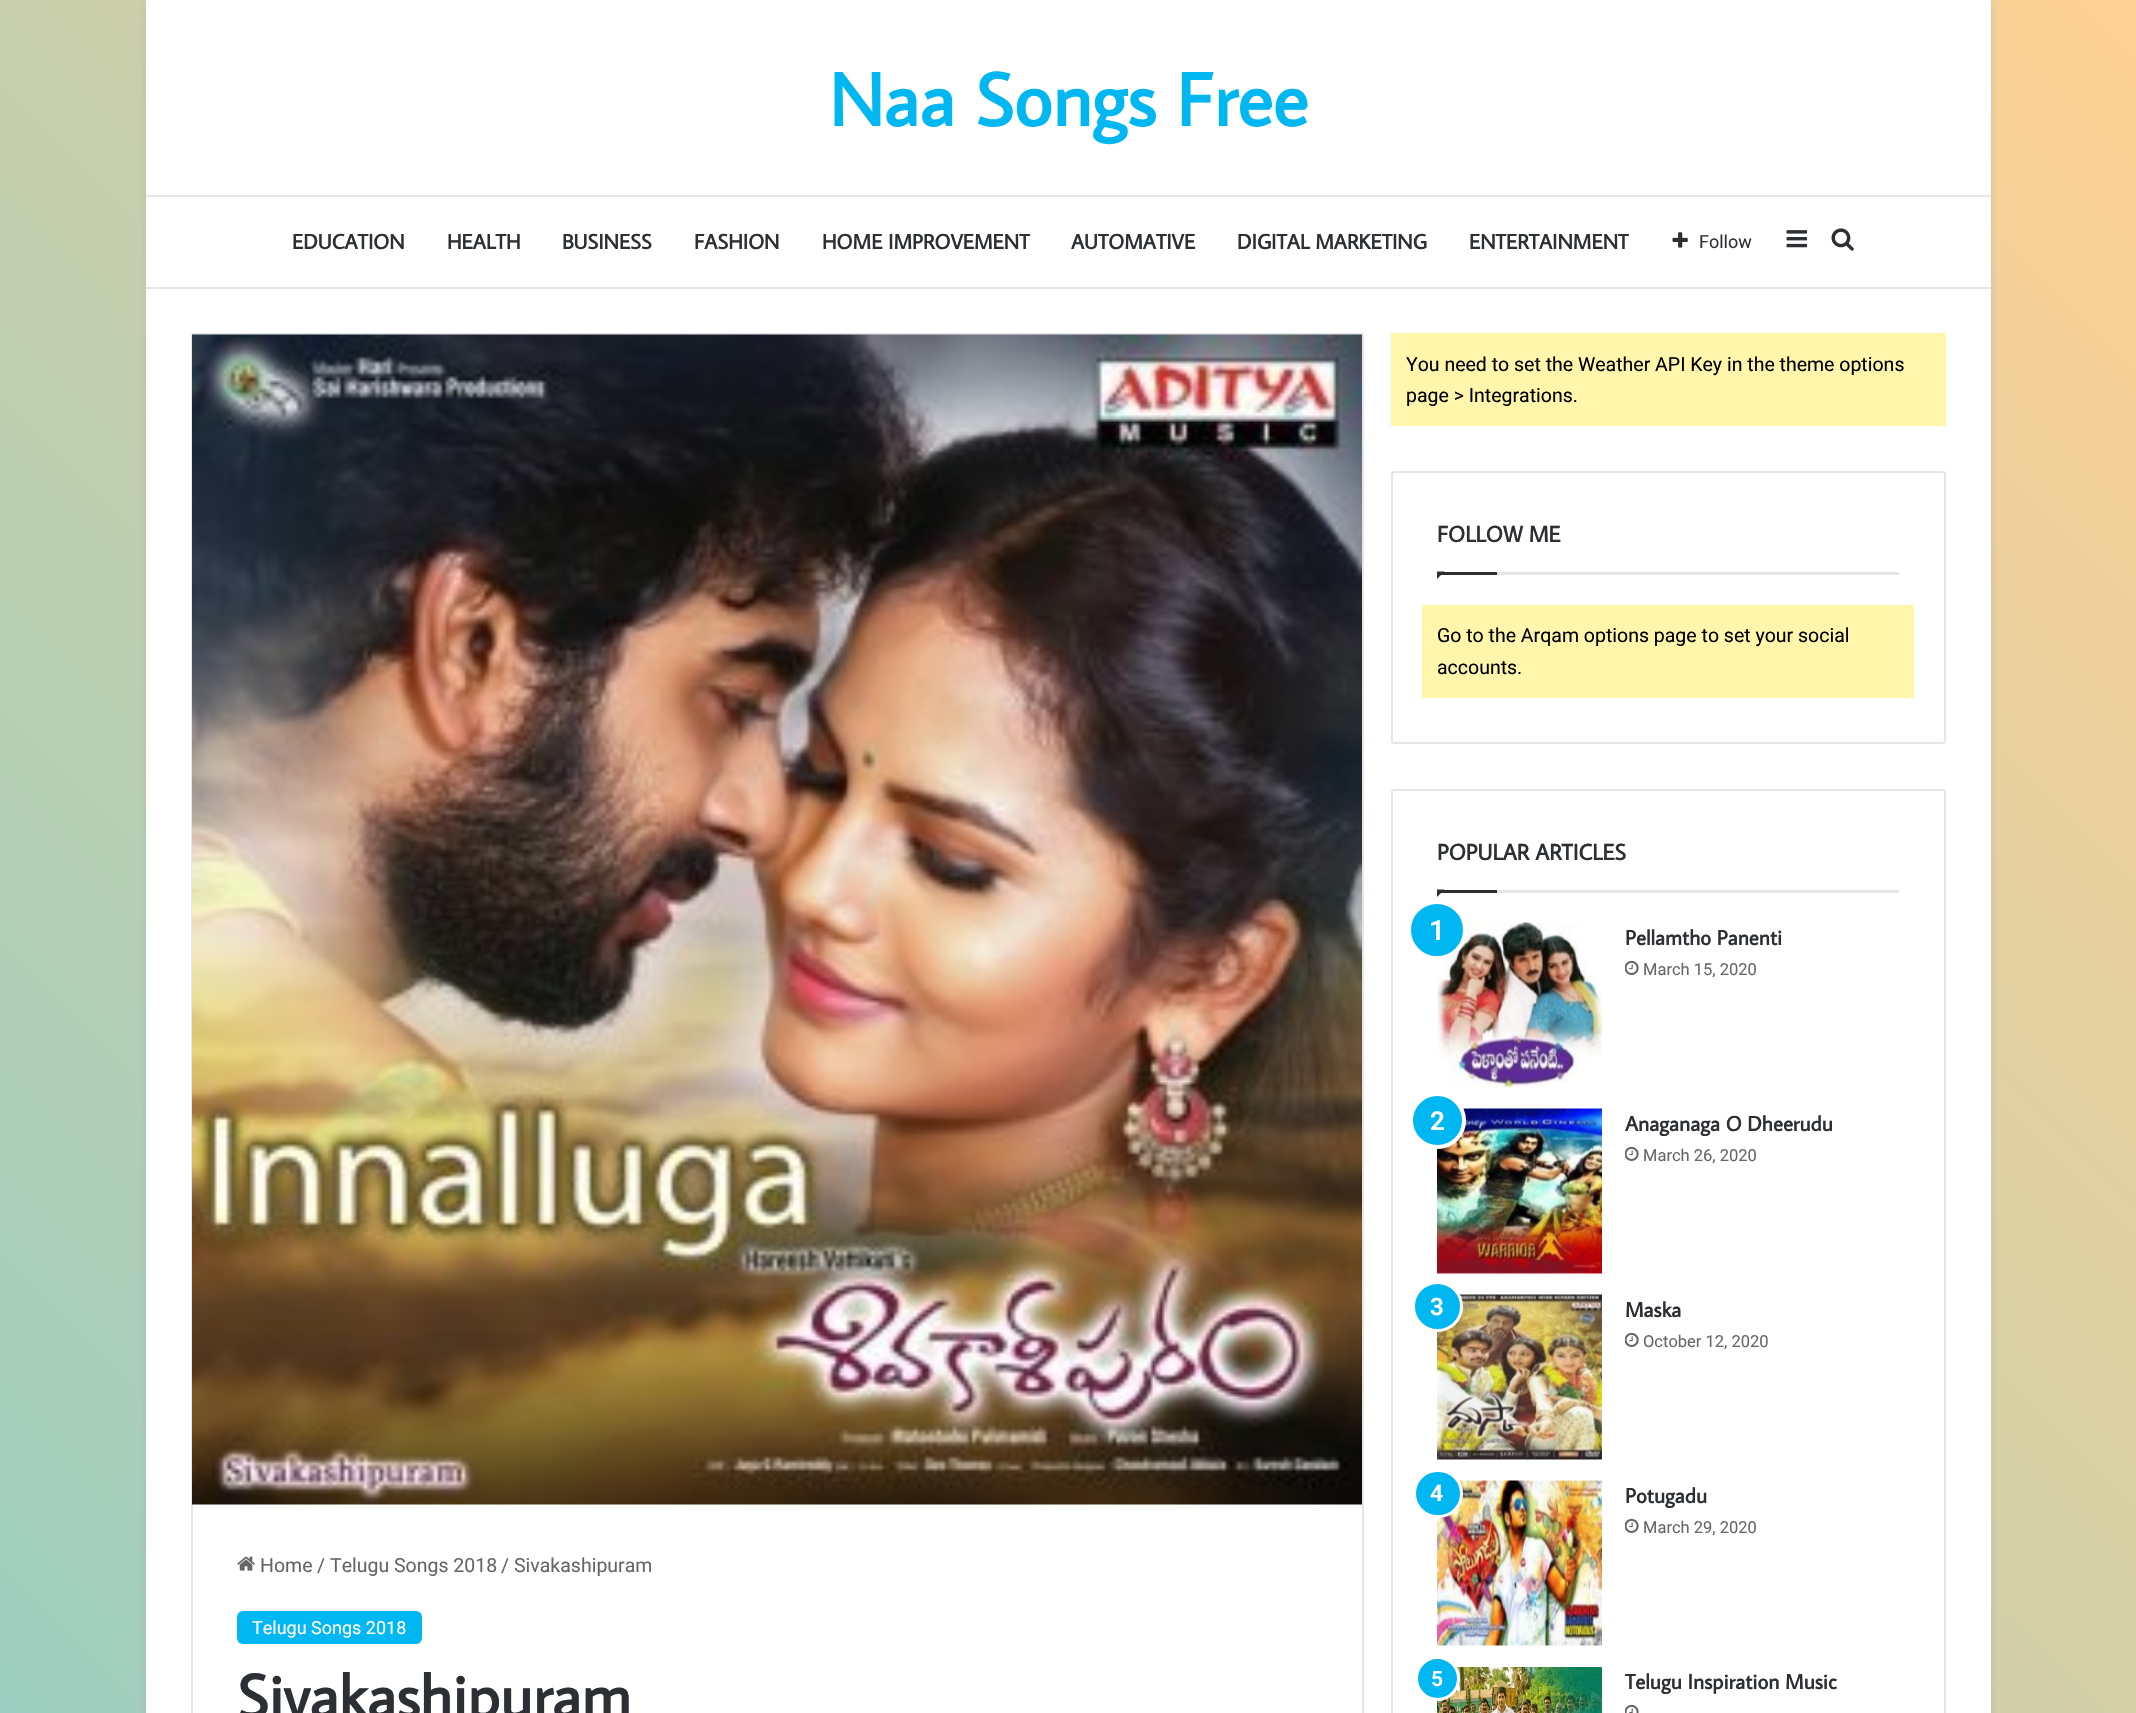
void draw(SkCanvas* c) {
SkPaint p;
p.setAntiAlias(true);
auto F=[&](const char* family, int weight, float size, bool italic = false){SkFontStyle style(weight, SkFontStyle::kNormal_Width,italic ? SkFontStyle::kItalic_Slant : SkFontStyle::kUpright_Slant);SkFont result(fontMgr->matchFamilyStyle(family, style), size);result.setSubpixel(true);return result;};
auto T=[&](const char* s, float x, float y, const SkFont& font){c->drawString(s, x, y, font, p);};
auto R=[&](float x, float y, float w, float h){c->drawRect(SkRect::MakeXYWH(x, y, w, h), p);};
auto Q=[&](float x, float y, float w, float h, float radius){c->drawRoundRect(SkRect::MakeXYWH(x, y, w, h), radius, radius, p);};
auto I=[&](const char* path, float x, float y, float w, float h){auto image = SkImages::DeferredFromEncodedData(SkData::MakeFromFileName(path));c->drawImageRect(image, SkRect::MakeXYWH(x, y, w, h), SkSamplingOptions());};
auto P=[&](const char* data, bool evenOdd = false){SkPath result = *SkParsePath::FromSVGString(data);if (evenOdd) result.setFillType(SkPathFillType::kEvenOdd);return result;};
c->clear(0xffffffff);
{
const SkColor colors[] = {0xff11c9fc,0xffffd194};
const float stops[] = {0,1};
const SkPoint ends[] = {{-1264,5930}, {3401,1264}};
p.setShader(SkGradientShader::MakeLinear(ends, colors, stops, 2, SkTileMode::kClamp));
p.setAlpha(255);
}
R(0,0,2136,1713);
p.setShader(nullptr);
p.setColor(0x80ababab);
p.setMaskFilter(SkMaskFilter::MakeBlur(kNormal_SkBlurStyle, 5));
c->drawRect(SkRect::MakeXYWH(146,2,1845,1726),p);
p.setMaskFilter(nullptr);
p.setColor(0xffffffff);
R(146,0,1845,1713);
auto f1 = F("Average Sans",700,75);
p.setColor(0xff01b7f2);
T("Naa Songs Free",829,126,f1);
p.setColor(0xffe6e6e6);
R(146,195,1845,2);
R(146,287,1845,2);
auto f2 = F("Average Sans",700,21);
p.setColor(0xff2c2f34);
T("EDUCATION",292,249,f2);
T("HEALTH",447,249,f2);
T("BUSINESS",562,249,f2);
T("FASHION",694,249,f2);
T("HOME IMPROVEMENT",822,249,f2);
T("AUTOMATIVE",1071,249,f2);
T("DIGITAL MARKETING",1237,249,f2);
T("ENTERTAINMENT",1469,249,f2);
I("1.png",1672,232,16,16);
auto f3 = F("Roboto",400,18);
T("Follow",1699,248,f3);
I("2.png",1786,230,22,18);
I("3.png",1831,228,23,23);
p.setStroke(true);
p.setStrokeWidth(2);
p.setColor(0xffe6e6e6);
c->drawRoundRect(SkRect::MakeXYWH(192,334,1171,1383),2,2,p);
I("4.png",192,334,1170,1171);
I("5.png",237,1556,18,15);
auto f4 = F("Roboto",400,19.5);
p.setStroke(false);
p.setColor(0xff666666);
T("Home",260,1572,f4);
T("/",317,1572,f4);
T("Telugu Songs 2018",330,1572,f4);
T("/",501,1572,f4);
T("Sivakashipuram",514,1572,f4);
p.setColor(0xff01b7f2);
Q(237,1611,185,33,6);
p.setColor(0xffffffff);
T("Telugu Songs 2018",252,1634,f3);
auto f5 = F("Average Sans",700,61.5);
p.setColor(0xff2c2f34);
T("Sivakashipuram",237,1718,f5);
p.setColor(0xfffff6ac);
R(1391,333,555,93);
p.setColor(0xff000000);
T("You need to set the Weather API Key in the theme options",1406,371,f4);
T("page > Integrations.",1406,402,f4);
p.setStroke(true);
p.setColor(0xffe6e6e6);
c->drawRoundRect(SkRect::MakeXYWH(1392,472,553,271),2,2,p);
p.setStroke(false);
R(1497,572,402,3);
auto f6 = F("Average Sans",700,22.5);
p.setColor(0xff2c2f34);
T("FOLLOW ME",1437,542,f6);
c->drawPath(P("M1437 571.5h7.5l-7.5 7.5z"),p);
R(1437,572,60,3);
p.setColor(0xfffff6ac);
R(1422,605,492,93);
p.setColor(0xff000000);
T("Go to the Arqam options page to set your social",1437,642,f4);
T("accounts.",1437,674,f4);
p.setStroke(true);
p.setColor(0xffe6e6e6);
c->drawRoundRect(SkRect::MakeXYWH(1392,790,553,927),2,2,p);
p.setStroke(false);
R(1497,890,402,3);
p.setColor(0xff2c2f34);
T("POPULAR ARTICLES",1437,860,f6);
c->drawPath(P("M1437 889.5h7.5l-7.5 7.5z"),p);
R(1437,890,60,3);
I("6.png",1437,922,165,166);
p.setColor(0xff01b7f2);
c->drawCircle(1437,930,28,p);
p.setStroke(true);
p.setStrokeWidth(4);
p.setColor(0xffffffff);
c->drawCircle(1437,930,28,p);
auto f7 = F("Roboto",600,28);
p.setStroke(false);
T("1",1429,940,f7);
p.setColor(0xff2c2f34);
T("Pellamtho Panenti",1625,945,f2);
I("7.png",1625,960,14,15);
auto f8 = F("Roboto",400,16.5);
p.setColor(0xff666666);
T("March 15, 2020",1643,975,f8);
I("8.png",1437,1108,165,166);
p.setColor(0xff01b7f2);
c->drawCircle(1437.5,1120.5,26.5,p);
p.setStroke(true);
p.setColor(0xffffffff);
c->drawCircle(1437.5,1120.5,26.5,p);
auto f9 = F("Roboto",600,26);
p.setStroke(false);
T("2",1430,1130,f9);
p.setColor(0xff2c2f34);
T("Anaganaga O Dheerudu",1625,1131,f2);
I("7.png",1625,1146,14,15);
p.setColor(0xff666666);
T("March 26, 2020",1643,1161,f8);
I("9.png",1437,1294,165,166);
p.setColor(0xff01b7f2);
c->drawCircle(1437.5,1306.5,24,p);
p.setStroke(true);
p.setStrokeWidth(3);
p.setColor(0xffffffff);
c->drawCircle(1437.5,1306.5,24,p);
auto f10 = F("Roboto",600,24);
p.setStroke(false);
T("3",1430,1315,f10);
p.setColor(0xff2c2f34);
T("Maska",1625,1317,f2);
I("7.png",1625,1332,14,15);
p.setColor(0xff666666);
T("October 12, 2020",1643,1347,f8);
I("10.png",1437,1480,165,166);
p.setColor(0xff01b7f2);
c->drawRoundRect(SkRect::MakeXYWH(1414.5,1470.5,47,46),23,23,p);
p.setStroke(true);
p.setColor(0xffffffff);
c->drawRoundRect(SkRect::MakeXYWH(1414.5,1470.5,47,46),23,23,p);
auto f11 = F("Roboto",600,23);
p.setStroke(false);
T("4",1430,1501,f11);
p.setColor(0xff2c2f34);
T("Potugadu",1625,1503,f2);
I("7.png",1625,1518,14,15);
p.setColor(0xff666666);
T("March 29, 2020",1643,1533,f8);
I("11.png",1437,1667,165,46);
p.setColor(0xff01b7f2);
c->drawCircle(1437.5,1678.5,21,p);
p.setStroke(true);
p.setColor(0xffffffff);
c->drawCircle(1437.5,1678.5,21,p);
auto f12 = F("Roboto",600,21);
p.setStroke(false);
T("5",1431,1686,f12);
p.setColor(0xff2c2f34);
T("Telugu Inspiration Music",1625,1689,f2);
I("12.png",1625,1704,14,9);
}
